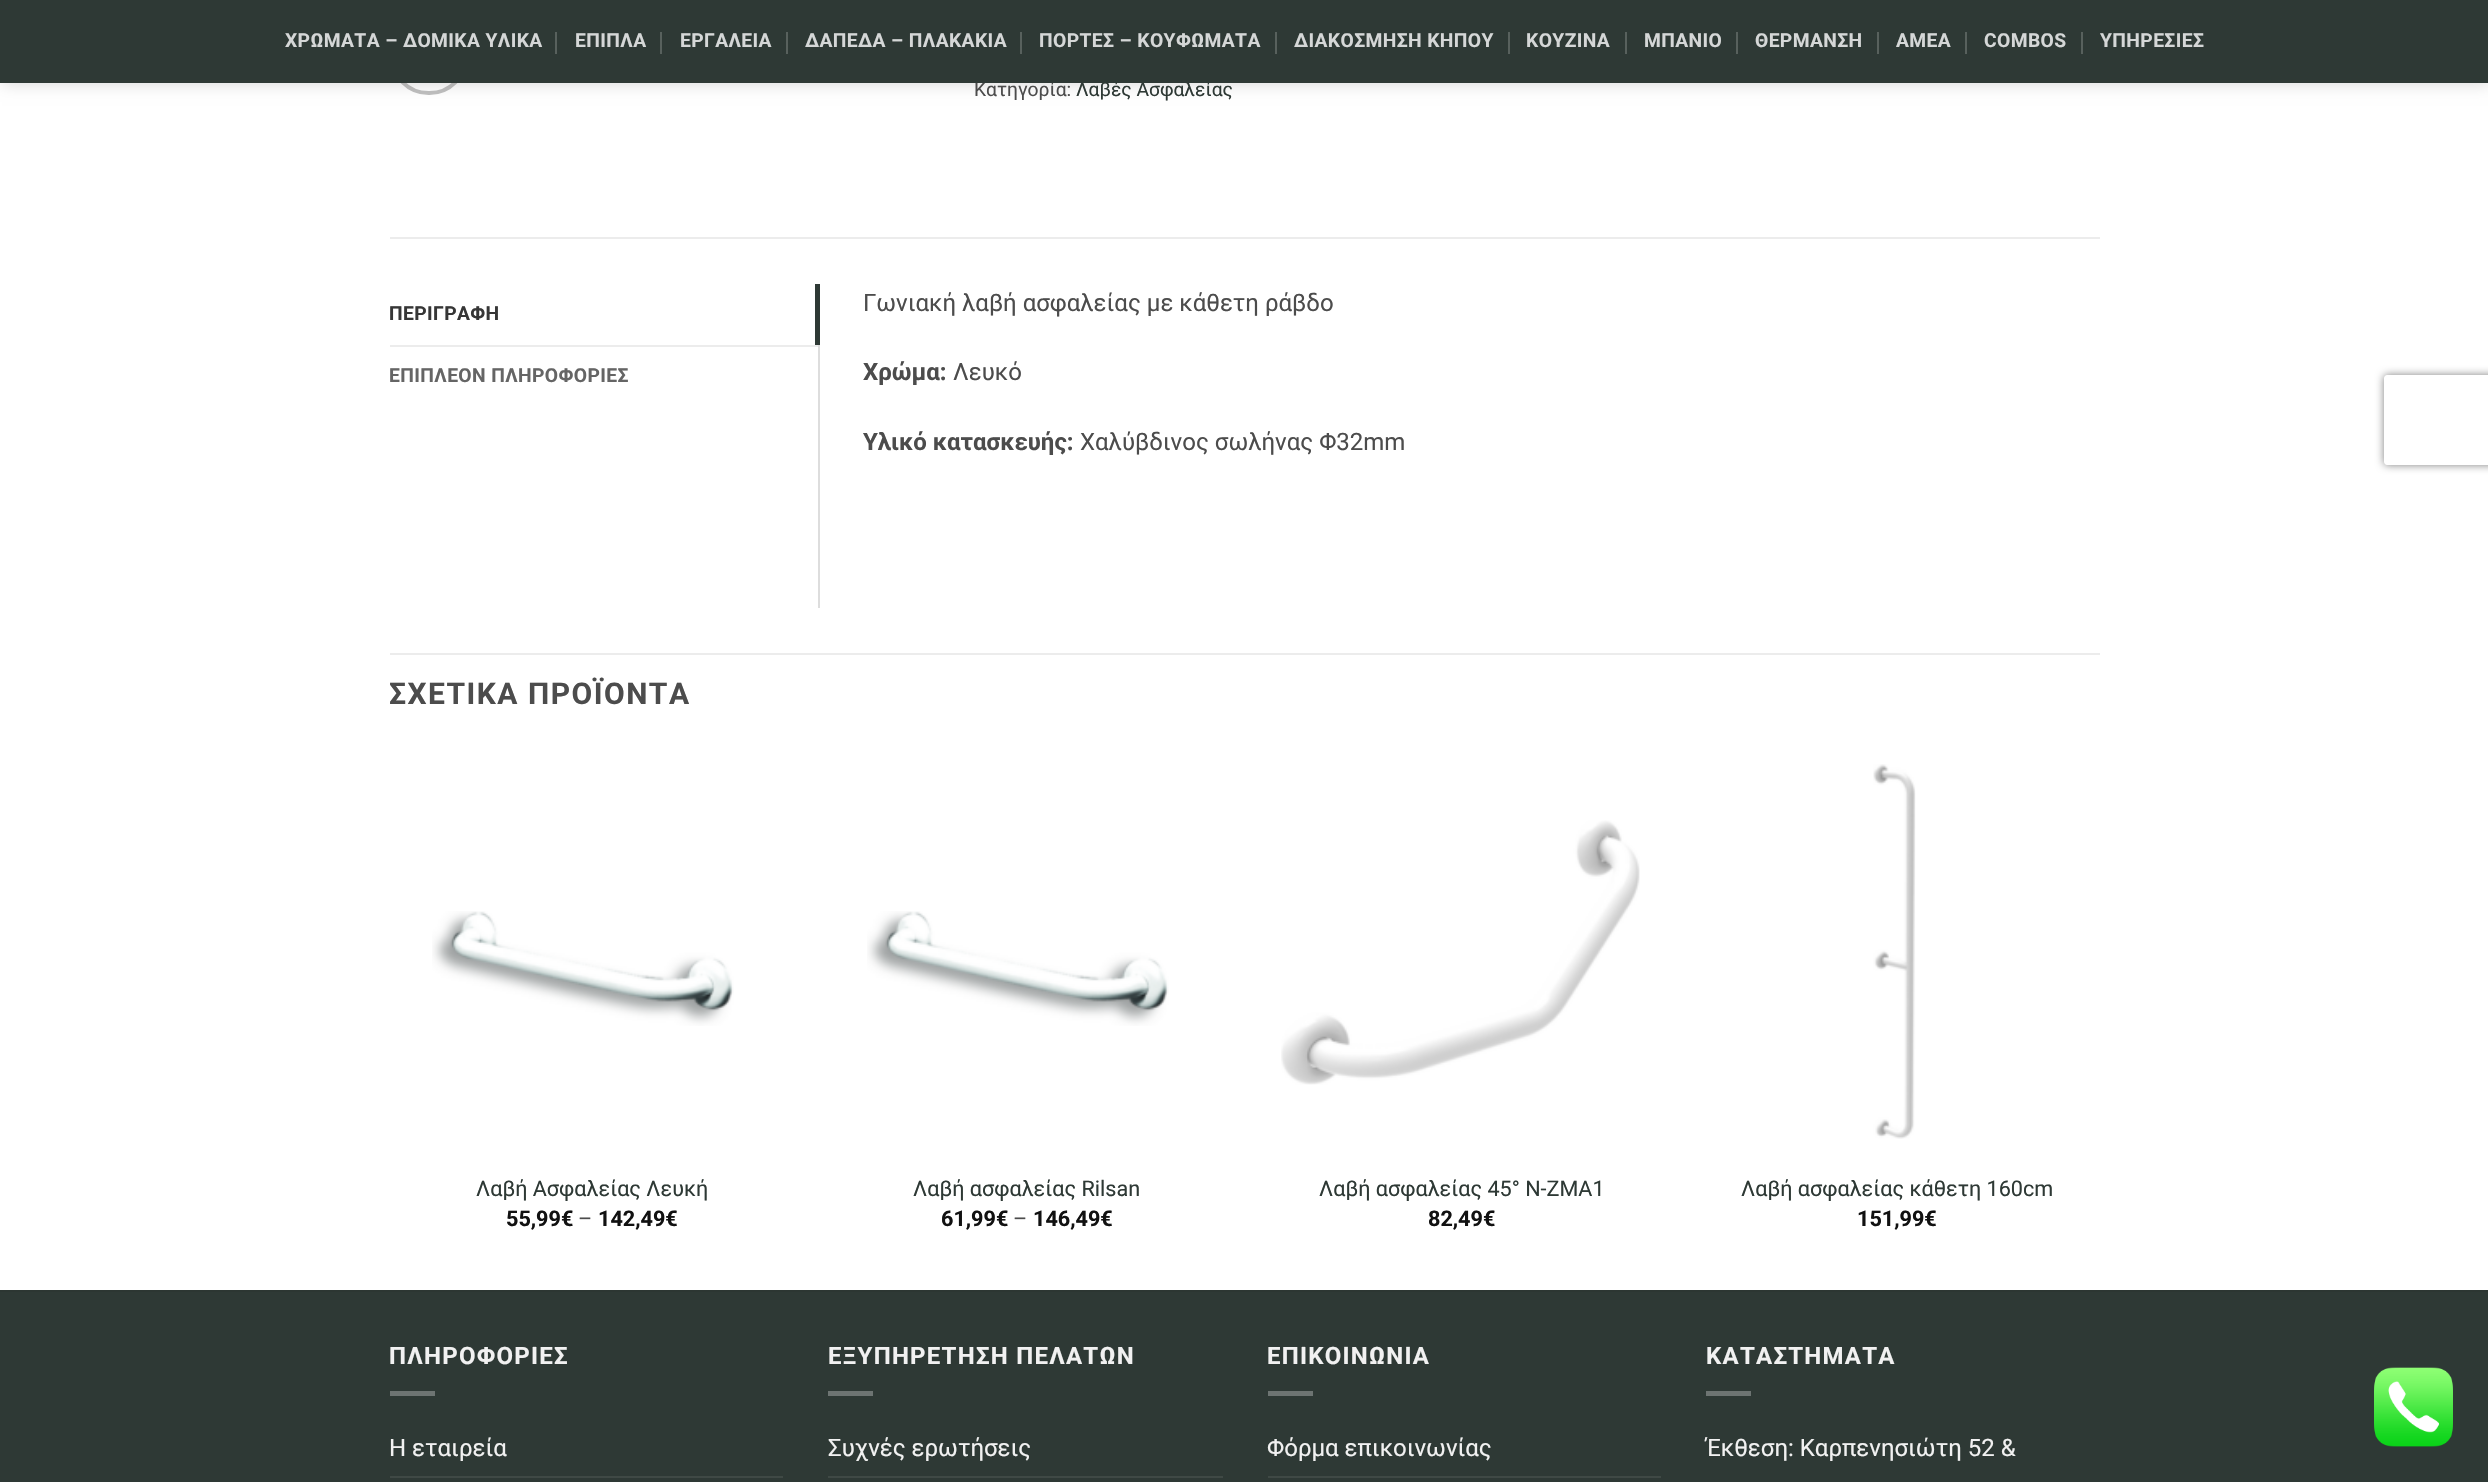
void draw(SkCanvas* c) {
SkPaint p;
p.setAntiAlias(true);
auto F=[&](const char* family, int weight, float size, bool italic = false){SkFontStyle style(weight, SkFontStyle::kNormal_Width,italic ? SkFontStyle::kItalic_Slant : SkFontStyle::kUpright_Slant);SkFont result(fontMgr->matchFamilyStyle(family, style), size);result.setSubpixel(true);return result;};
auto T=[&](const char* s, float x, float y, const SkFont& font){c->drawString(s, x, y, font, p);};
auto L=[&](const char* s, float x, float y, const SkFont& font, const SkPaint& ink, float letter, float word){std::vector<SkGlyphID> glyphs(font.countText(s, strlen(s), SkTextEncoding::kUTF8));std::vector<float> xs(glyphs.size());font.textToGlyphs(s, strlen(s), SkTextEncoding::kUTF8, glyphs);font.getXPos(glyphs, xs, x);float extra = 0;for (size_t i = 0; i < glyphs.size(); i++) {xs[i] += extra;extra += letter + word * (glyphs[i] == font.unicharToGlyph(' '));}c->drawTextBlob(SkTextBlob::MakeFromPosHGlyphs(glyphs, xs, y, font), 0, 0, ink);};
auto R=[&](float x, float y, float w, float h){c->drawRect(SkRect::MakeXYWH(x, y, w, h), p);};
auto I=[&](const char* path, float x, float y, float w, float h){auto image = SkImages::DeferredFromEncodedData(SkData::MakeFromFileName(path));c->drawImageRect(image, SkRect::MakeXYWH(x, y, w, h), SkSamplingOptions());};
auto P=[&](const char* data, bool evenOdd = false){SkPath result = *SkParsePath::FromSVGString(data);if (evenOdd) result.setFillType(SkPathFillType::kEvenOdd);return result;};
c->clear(0xffffffff);
p.setStroke(true);
p.setStrokeWidth(4);
p.setColor(0xffc0c0c0);
c->drawRoundRect(SkRect::MakeXYWH(392,20,74,73),36.5,36.5,p);
p.setStroke(false);
p.setColor(0x26000000);
p.setMaskFilter(SkMaskFilter::MakeBlur(kNormal_SkBlurStyle, 7.5));
c->drawRect(SkRect::MakeXYWH(2,2,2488,82),p);
p.setMaskFilter(nullptr);
auto f1 = F("Roboto",400,19.25);
p.setColor(0xff4c4c4c);
T("Κατηγορία:",974,96,f1);
p.setColor(0xff2e3935);
R(0,0,2488,83);
auto f2 = F("Roboto",700,19.25);
p.setColor(0xffd5d7d7);
L("ΧΡΩΜΑΤΑ – ΔΟΜΙΚΑ ΥΛΙΚΑ",285,47,f2,p,.4,0);
p.setColor(0xff58615d);
R(555,32,2,22);
p.setColor(0xffd5d7d7);
L("ΕΠΙΠΛΑ",575,47,f2,p,.4,0);
p.setColor(0xff58615d);
R(660,32,2,22);
p.setColor(0xffd5d7d7);
L("ΕΡΓΑΛΕΙΑ",680,47,f2,p,.4,0);
p.setColor(0xff58615d);
R(786,32,2,22);
p.setColor(0xffd5d7d7);
L("ΔΑΠΕΔΑ – ΠΛΑΚΑΚΙΑ",805,47,f2,p,.4,0);
p.setColor(0xff58615d);
R(1020,32,2,22);
p.setColor(0xffd5d7d7);
L("ΠΟΡΤΕΣ – ΚΟΥΦΩΜΑΤΑ",1039,47,f2,p,.4,0);
p.setColor(0xff58615d);
R(1275,32,2,22);
p.setColor(0xffd5d7d7);
L("ΔΙΑΚΟΣΜΗΣΗ ΚΗΠΟΥ",1294,47,f2,p,.4,0);
p.setColor(0xff58615d);
R(1508,32,2,22);
p.setColor(0xffd5d7d7);
L("ΚΟΥΖΙΝΑ",1526,47,f2,p,.4,0);
p.setColor(0xff58615d);
R(1625,32,2,22);
p.setColor(0xffd5d7d7);
L("ΜΠΑΝΙΟ",1644,47,f2,p,.4,0);
p.setColor(0xff58615d);
R(1736,32,2,22);
p.setColor(0xffd5d7d7);
L("ΘΕΡΜΑΝΣΗ",1755,47,f2,p,.4,0);
p.setColor(0xff58615d);
R(1877,32,2,22);
p.setColor(0xffd5d7d7);
L("AMEA",1896,47,f2,p,.4,0);
p.setColor(0xff58615d);
R(1965,32,2,22);
p.setColor(0xffd5d7d7);
L("COMBOS",1984,47,f2,p,.4,0);
p.setColor(0xff58615d);
R(2081,32,2,22);
p.setColor(0xffd5d7d7);
L("ΥΠΗΡΕΣΙΕΣ",2100,47,f2,p,.4,0);
p.setColor(0xff2e3935);
T("Λαβές Ασφαλείας",1076,96,f1);
p.setColor(0xffececec);
R(390,237,1710,2);
p.setColor(0xff363636);
L("ΠΕΡΙΓΡΑΦΗ",389,320,f2,p,.4,0);
p.setColor(0xff2e3935);
R(815,284,5,61);
p.setColor(0xffececec);
R(390,345,428,2);
p.setColor(0xff656565);
L("ΕΠΙΠΛΕΟΝ ΠΛΗΡΟΦΟΡΙΕΣ",389,382,f2,p,.4,0);
p.setColor(0xffdddddd);
R(818,345,2,263);
auto f3 = F("Roboto",400,24);
p.setColor(0xff4c4c4c);
T("Γωνιακή λαβή ασφαλείας με κάθετη ράβδο",863,311,f3);
auto f4 = F("Roboto",700,24);
T("Χρώμα:",863,380,f4);
T("Λευκό",953,380,f3);
T("Υλικό κατασκευής:",863,450,f4);
T("Χαλύβδινος σωλήνας Φ32mm",1080,450,f3);
p.setColor(0xffececec);
R(390,653,1710,2);
auto f5 = F("Roboto",700,30);
p.setColor(0xff4c4c4c);
L("ΣΧΕΤΙΚΑ ΠΡΟΪΟΝΤΑ",389,704,f5,p,1.5,0);
I("1.png",432,911,302,115);
auto f6 = F("Roboto",400,21.6);
p.setColor(0xff2e3935);
T("Λαβή Ασφαλείας Λευκή",476,1196,f6);
auto f7 = F("Roboto",700,21.6);
p.setColor(0xff111111);
T("55,99€",506,1226,f7);
p.setColor(0xff4c4c4c);
T("–",578,1226,f6);
p.setColor(0xff111111);
T("142,49€",598,1226,f7);
I("1.png",867,911,302,115);
p.setColor(0xff2e3935);
T("Λαβή ασφαλείας Rilsan",913,1196,f6);
p.setColor(0xff111111);
T("61,99€",941,1226,f7);
p.setColor(0xff4c4c4c);
T("–",1013,1226,f6);
p.setColor(0xff111111);
T("146,49€",1033,1226,f7);
I("2.png",1281,820,359,265);
p.setColor(0xff2e3935);
T("Λαβή ασφαλείας 45° N-ZMA1",1319,1196,f6);
p.setColor(0xff111111);
T("82,49€",1428,1226,f7);
I("3.png",1873,764,43,375);
p.setColor(0xff2e3935);
T("Λαβή ασφαλείας κάθετη 160cm",1741,1196,f6);
p.setColor(0xff111111);
T("151,99€",1857,1226,f7);
p.setColor(0xff2e3935);
R(0,1292,2488,190);
p.setColor(0xff2c3632);
R(0,1290,2488,2);
p.setColor(0xfff1f1f1);
L("ΠΛΗΡΟΦΟΡΙΕΣ",389,1364,f4,p,1.25,0);
p.setColor(0xff6d7472);
R(390,1391,45,5);
p.setColor(0xfff1f1f1);
T("Η εταιρεία",389,1456,f3);
p.setColor(0xff3f4945);
R(390,1476,393,2);
p.setColor(0xfff1f1f1);
L("ΕΞΥΠΗΡΕΤΗΣΗ ΠΕΛΑΤΩΝ",828,1364,f4,p,1.25,0);
p.setColor(0xff6d7472);
R(828,1391,45,5);
p.setColor(0xfff1f1f1);
T("Συχνές ερωτήσεις",828,1456,f3);
p.setColor(0xff3f4945);
R(828,1476,395,2);
p.setColor(0xfff1f1f1);
L("ΕΠΙΚΟΙΝΩΝΙΑ",1267,1364,f4,p,1.25,0);
p.setColor(0xff6d7472);
R(1268,1391,45,5);
p.setColor(0xfff1f1f1);
T("Φόρμα επικοινωνίας",1267,1456,f3);
p.setColor(0xff3f4945);
R(1268,1476,393,2);
p.setColor(0xfff1f1f1);
L("ΚΑΤΑΣΤΗΜΑΤΑ",1706,1364,f4,p,1.25,0);
p.setColor(0xff6d7472);
R(1706,1391,45,5);
p.setColor(0xfff1f1f1);
T("Έκθεση: Καρπενησιώτη 52 &",1706,1456,f3);
I("4.png",2374,1367,79,80);
c->save();
c->clipPath(P("M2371 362h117v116h-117zm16 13h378c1.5 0 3 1.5 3 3v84c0 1.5-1.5 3-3 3h-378c-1.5 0-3-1.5-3-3v-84c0-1.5 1.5-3 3-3z",true),true);
p.setColor(0xff808080);
p.setMaskFilter(SkMaskFilter::MakeBlur(kNormal_SkBlurStyle, 4));
c->drawRoundRect(SkRect::MakeXYWH(2384,375,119,90),3,3,p);
p.setMaskFilter(nullptr);
c->restore();
}
